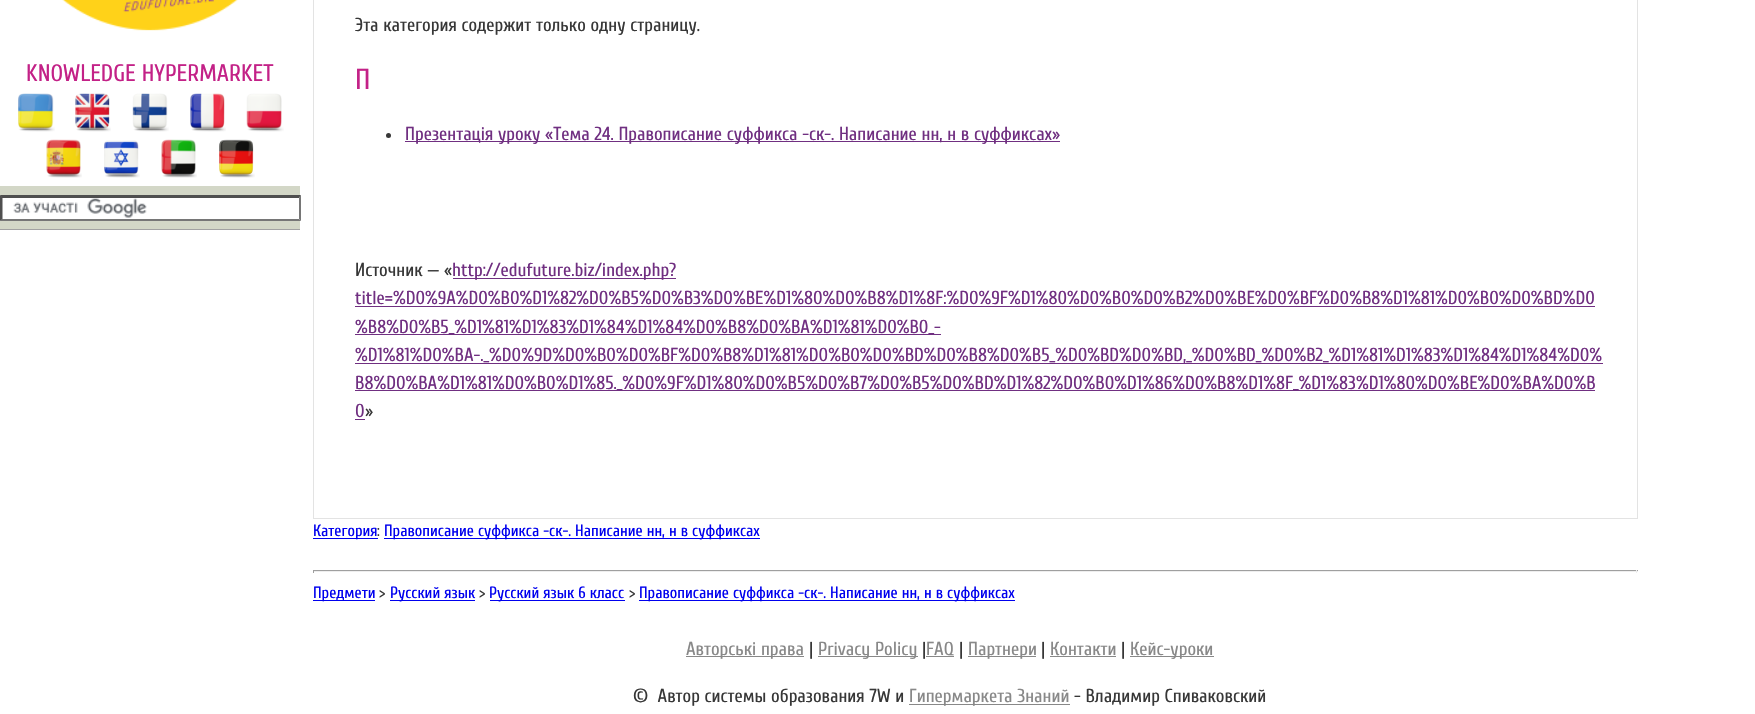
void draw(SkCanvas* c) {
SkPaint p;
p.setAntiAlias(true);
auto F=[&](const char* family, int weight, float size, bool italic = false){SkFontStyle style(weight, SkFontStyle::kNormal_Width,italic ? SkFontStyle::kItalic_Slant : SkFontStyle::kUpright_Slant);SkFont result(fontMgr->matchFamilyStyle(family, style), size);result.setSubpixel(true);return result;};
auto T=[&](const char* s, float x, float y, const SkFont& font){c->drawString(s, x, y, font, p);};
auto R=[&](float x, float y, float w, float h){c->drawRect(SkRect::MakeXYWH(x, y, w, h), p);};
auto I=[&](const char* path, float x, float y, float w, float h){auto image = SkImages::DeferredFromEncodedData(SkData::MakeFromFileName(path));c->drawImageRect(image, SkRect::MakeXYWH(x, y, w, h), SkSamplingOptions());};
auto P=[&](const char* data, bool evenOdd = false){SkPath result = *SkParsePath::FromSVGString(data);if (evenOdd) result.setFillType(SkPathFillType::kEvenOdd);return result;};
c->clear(0xffffffff);
I("1.png",62,0,176,31);
auto f1 = F("Cuprum",400,23.75);
p.setColor(0xffc32187);
T("KNOWLEDGE HYPERMARKET",26,81,f1);
I("2.png",18,93,37,39);
I("3.png",75,93,36,39);
I("4.png",132,93,37,39);
I("5.png",190,93,36,39);
I("6.png",246,93,38,39);
I("7.png",46,139,36,39);
I("8.png",104,140,36,38);
I("9.png",161,139,36,39);
I("10.png",219,139,36,39);
p.setColor(0xffd3d7c7);
R(0,186,300,43);
p.setColor(0xffa2a2a2);
R(0,229,300,1);
p.setColor(0xffffffff);
R(0,195,300,26);
I("11.png",13,198,134,20);
p.setColor(0xff4f4f4f);
c->drawPath(P("M0 195h301l-2 3h-297z"),p);
p.setColor(0xff767676);
c->drawPath(P("M301 195v26l-2-2v-21.5z"),p);
c->drawPath(P("M301 221h-301l2-2h297z"),p);
p.setColor(0xff4f4f4f);
c->drawPath(P("M0 221v-26l2.5 2.5v21.5z"),p);
p.setStroke(true);
p.setStrokeWidth(1);
p.setColor(0xffe3e3e3);
c->drawRect(SkRect::MakeXYWH(313.5,-.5,1324,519),p);
auto f2 = F("Cuprum",400,18.75);
p.setStroke(false);
p.setColor(0xff373737);
T("Эта категория содержит только одну страницу.",355,31,f2);
auto f3 = F("Cuprum",400,29);
p.setColor(0xffc32187);
T("П",355,89,f3);
p.setColor(0xff373737);
c->drawCircle(388.5,135.5,2.5,p);
p.setColor(0xff702f81);
R(405,141,655,1);
T("Презентація уроку «Тема 24. Правописание суффикса -ск-. Написание нн, н в суффиксах»",405,140,f2);
p.setColor(0xff373737);
T("Источник — «",355,276,f2);
p.setColor(0xff702f81);
R(453,278,223,1);
T("http://edufuture.biz/index.php?",452,276,f2);
T("title=%D0%9A%D0%B0%D1%82%D0%B5%D0%B3%D0%BE%D1%80%D0%B8%D1%8F:%D0%9F%D1%80%D0%B0%D0%B2%D0%BE%D0%BF%D0%B8%D1%81%D0%B0%D0%BD%D0",355,304,f2);
R(355,306,1240,1);
R(355,334,586,1);
T("%B8%D0%B5_%D1%81%D1%83%D1%84%D1%84%D0%B8%D0%BA%D1%81%D0%B0_-",355,333,f2);
R(355,363,1248,1);
T("%D1%81%D0%BA-._%D0%9D%D0%B0%D0%BF%D0%B8%D1%81%D0%B0%D0%BD%D0%B8%D0%B5_%D0%BD%D0%BD,_%D0%BD_%D0%B2_%D1%81%D1%83%D1%84%D1%84%D0%",355,361,f2);
R(355,390,1240,1);
T("B8%D0%BA%D1%81%D0%B0%D1%85._%D0%9F%D1%80%D0%B5%D0%B7%D0%B5%D0%BD%D1%82%D0%B0%D1%86%D0%B8%D1%8F_%D1%83%D1%80%D0%BE%D0%BA%D0%B",355,389,f2);
T("0",355,417,f2);
R(355,419,10,1);
p.setColor(0xff373737);
T("»",365,417,f2);
p.setColor(0xff0000ee);
R(313,538,65,1);
auto f4 = F("Cuprum",400,16.25);
T("Категория",313,536,f4);
p.setColor(0xff373737);
T(":",377,536,f4);
p.setColor(0xff0000ee);
R(384,538,376,1);
T("Правописание суффикса -ск-. Написание нн, н в суффиксах",384,536,f4);
p.setColor(0xff9f9f9f);
R(313,570,1325,1);
p.setColor(0xffeeeeee);
R(1636,570,1,3);
R(313,571,1325,1);
p.setColor(0xff9f9f9f);
R(313,570,1,3);
p.setColor(0xff0000ee);
R(313,600,62,1);
T("Предмети",313,598,f4);
p.setColor(0xff373737);
T(">",379,598,f4);
p.setColor(0xff0000ee);
R(390,600,85,1);
T("Русский язык",390,598,f4);
p.setColor(0xff373737);
T(">",479,598,f4);
p.setColor(0xff0000ee);
R(490,600,135,1);
T("Русский язык 6 класс",489,598,f4);
p.setColor(0xff373737);
T(">",629,598,f4);
p.setColor(0xff0000ee);
R(639,600,376,1);
T("Правописание суффикса -ск-. Написание нн, н в суффиксах",639,598,f4);
p.setColor(0xff888888);
R(686,656,118,1);
T("Авторські права",686,655,f2);
p.setColor(0xff373737);
T("|",809,655,f2);
p.setColor(0xff888888);
R(818,656,100,1);
T("Privacy Policy",818,655,f2);
p.setColor(0xff373737);
T("|",922,655,f2);
p.setColor(0xff888888);
T("FAQ",926,655,f2);
R(926,656,28,1);
p.setColor(0xff373737);
T("|",959,655,f2);
p.setColor(0xff888888);
R(968,656,68,1);
T("Партнери",968,655,f2);
p.setColor(0xff373737);
T("|",1041,655,f2);
p.setColor(0xff888888);
T("Контакти",1050,655,f2);
R(1050,656,66,1);
p.setColor(0xff373737);
T("|",1121,655,f2);
p.setColor(0xff888888);
R(1130,656,84,1);
T("Кейс-уроки",1130,655,f2);
p.setColor(0xff373737);
T("©  Автор системы образования 7W и",633,702,f2);
p.setColor(0xff888888);
R(909,704,161,1);
T("Гипермаркета Знаний",909,702,f2);
p.setColor(0xff373737);
T("- Владимир Спиваковский",1074,702,f2);
}
